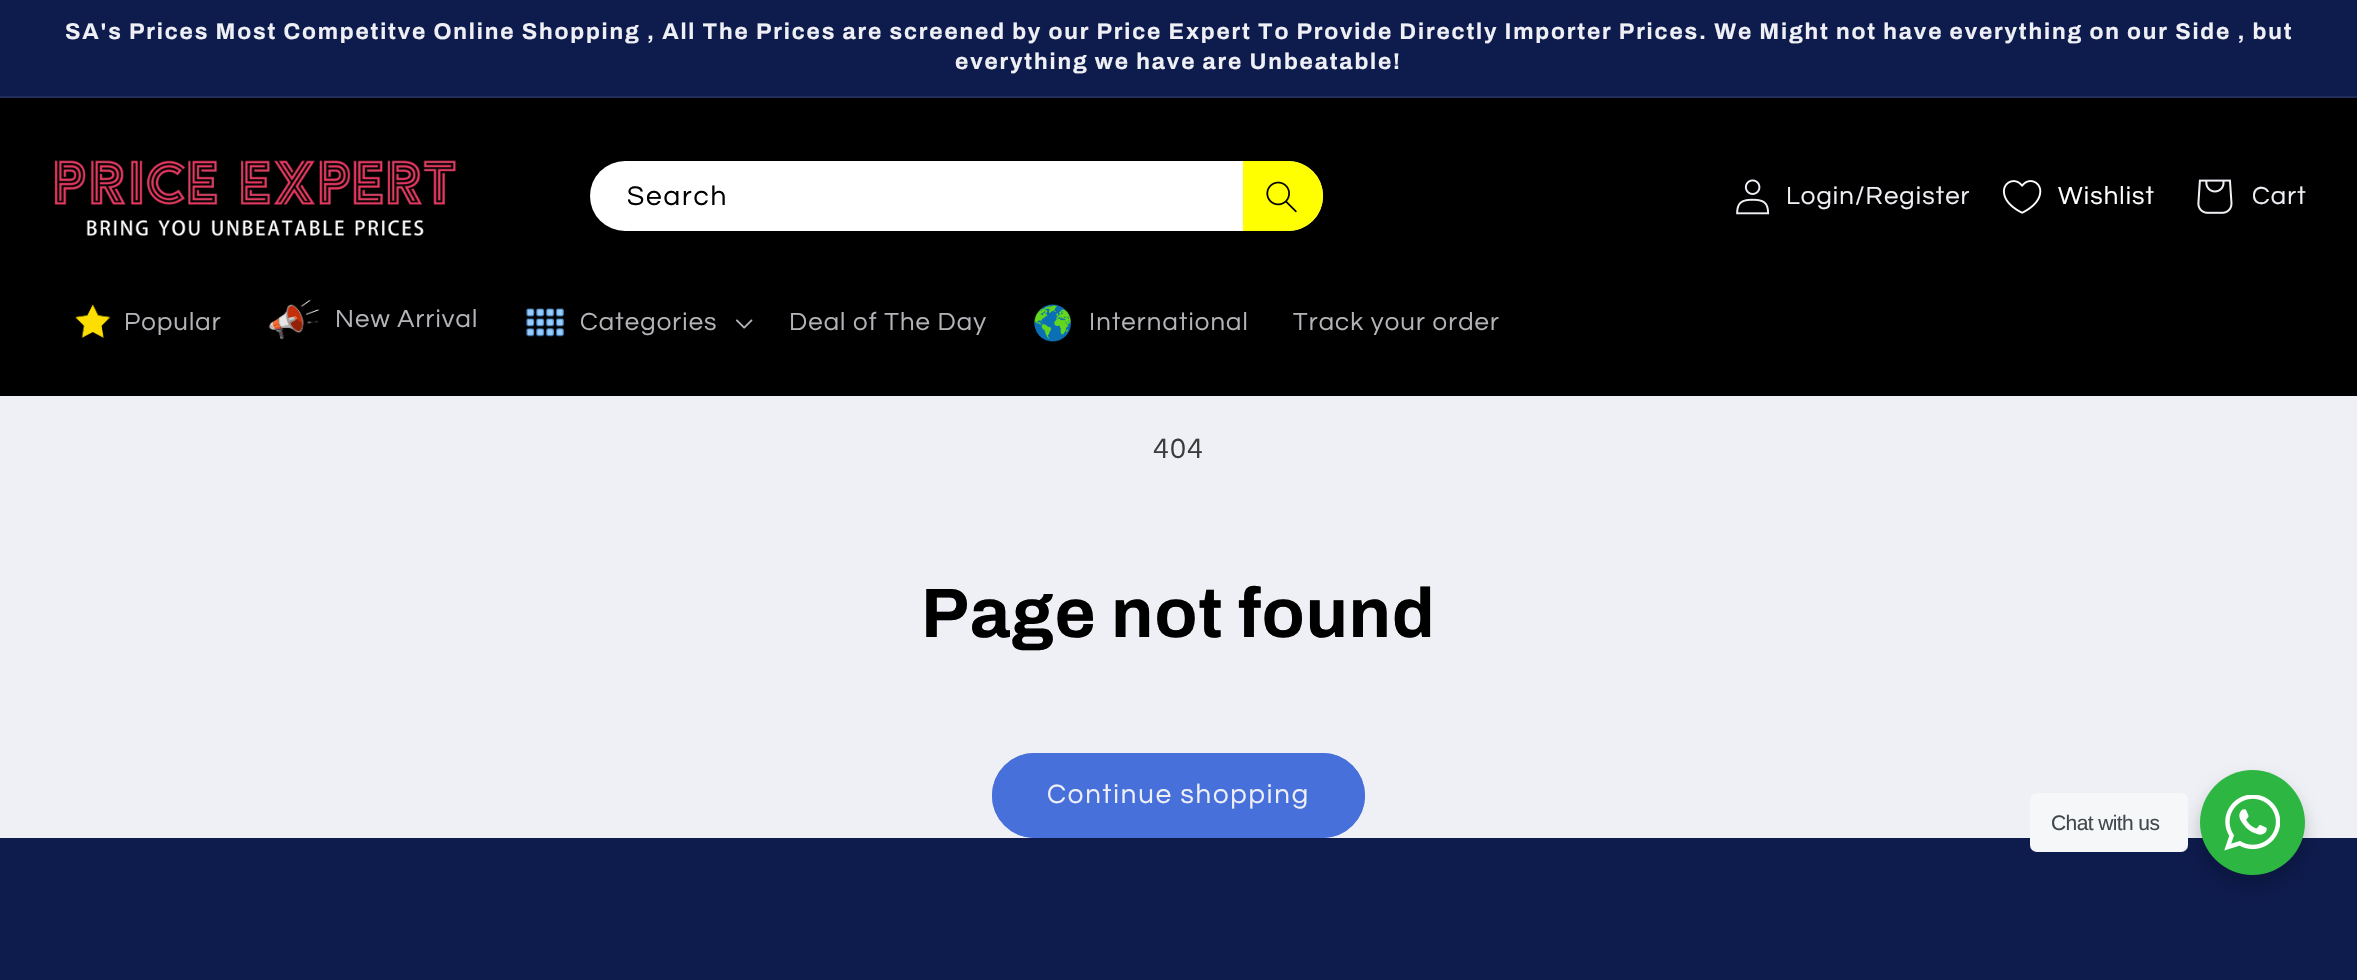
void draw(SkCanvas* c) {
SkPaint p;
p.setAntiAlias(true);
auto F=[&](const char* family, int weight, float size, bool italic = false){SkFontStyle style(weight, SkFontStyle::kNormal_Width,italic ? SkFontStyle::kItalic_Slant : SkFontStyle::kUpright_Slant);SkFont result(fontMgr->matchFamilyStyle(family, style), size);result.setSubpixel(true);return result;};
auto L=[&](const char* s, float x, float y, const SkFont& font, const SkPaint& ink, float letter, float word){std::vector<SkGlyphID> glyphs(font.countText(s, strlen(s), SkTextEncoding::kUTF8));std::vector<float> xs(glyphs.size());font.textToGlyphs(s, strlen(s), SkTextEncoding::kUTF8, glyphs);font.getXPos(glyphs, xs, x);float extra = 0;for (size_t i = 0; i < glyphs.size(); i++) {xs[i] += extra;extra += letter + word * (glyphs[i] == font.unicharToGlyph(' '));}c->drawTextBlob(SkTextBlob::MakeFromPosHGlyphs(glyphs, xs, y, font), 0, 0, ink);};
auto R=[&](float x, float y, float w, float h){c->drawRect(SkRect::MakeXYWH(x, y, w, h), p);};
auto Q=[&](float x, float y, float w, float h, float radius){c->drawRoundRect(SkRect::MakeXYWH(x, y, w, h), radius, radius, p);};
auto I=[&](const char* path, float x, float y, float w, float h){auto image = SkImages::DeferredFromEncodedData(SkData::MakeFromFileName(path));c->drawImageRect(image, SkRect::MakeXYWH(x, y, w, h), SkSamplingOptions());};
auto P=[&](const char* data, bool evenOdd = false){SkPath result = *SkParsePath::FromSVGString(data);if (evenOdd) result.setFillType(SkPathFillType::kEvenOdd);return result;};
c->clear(0xffeff0f5);
p.setColor(0xff0e1b4d);
R(0,0,2357,96);
p.setColor(0xff202c5a);
R(0,96,2357,2);
auto f1 = F("Archivo",700,22.75);
p.setColor(0xffeff0f5);
L("SA's Prices Most Competitve Online Shopping , All The Prices are screened by our Price Expert To Provide Directly Importer Prices. We Might not have everything on our Side , but",65,39,f1,p,1.84,0);
L("everything we have are Unbeatable!",955,69,f1,p,1.84,0);
p.setColor(0xff000000);
R(0,98,2357,298);
I("1.png",54,160,402,76);
p.setColor(0xffffffff);
Q(590,161,733,70,35);
auto f2 = F("Questrial",400,28);
p.setColor(0xff000000);
L("Search",627,205,f2,p,1.84,0);
p.setColor(0xffffff00);
c->drawPath(P("M1243 161h45c19.5 0 35 15.5 35 35c0 19.5-15.5 35-35 35h-45z"),p);
I("2.png",1266,181,31,32);
I("3.png",1736,179,34,36);
auto f3 = F("Questrial",400,25.75);
p.setColor(0xffeff0f5);
L("Login/Register",1786,204,f3,p,1.1,0);
I("4.png",2002,180,40,34);
p.setColor(0xffffffff);
L("Wishlist",2058,204,f3,p,1.1,0);
I("5.png",2197,179,36,35);
p.setColor(0xffeff0f5);
L("Cart",2252,204,f3,p,1.1,0);
I("6.png",75,304,36,34);
p.setColor(0xffb3b4b8);
L("Popular",124,330,f3,p,1.1,0);
I("7.png",268,299,52,41);
L("New Arrival",335,327,f3,p,1.1,0);
I("8.png",526,308,38,29);
L("Categories",580,330,f3,p,1.1,0);
I("9.png",736,319,17,10);
L("Deal of The Day",789,330,f3,p,1.1,0);
I("10.png",1034,304,37,38);
L("International",1089,330,f3,p,1.1,0);
L("Track your order",1293,330,f3,p,1.1,0);
auto f4 = F("Questrial",400,29);
p.setColor(0xff3c3c3d);
L("404",1153,458,f4,p,1.1,0);
auto f5 = F("Archivo",700,70);
p.setColor(0xff000000);
L("Page not found",921,637,f5,p,1,0);
p.setColor(0xff4770db);
Q(992,753,373,85,42.5);
p.setStroke(true);
p.setStrokeWidth(2);
c->drawRoundRect(SkRect::MakeXYWH(993,754,371,83),41.5,41.5,p);
auto f6 = F("Questrial",400,27.5);
p.setStroke(false);
p.setColor(0xffeff0f5);
L("Continue shopping",1047,803,f6,p,1.84,0);
p.setColor(0xff0e1b4d);
R(0,838,2357,142);
p.setColor(0x24000000);
p.setMaskFilter(SkMaskFilter::MakeBlur(kNormal_SkBlurStyle, 7));
c->drawRoundRect(SkRect::MakeXYWH(2196,777,112,112),56,56,p);
p.setMaskFilter(nullptr);
p.setColor(0xfff5f7f9);
Q(2030,793,158,59,7);
auto f7 = F("Liberation Sans",400,21);
p.setColor(0xff43474e);
L("Chat with us",2051,830,f7,p,-.6,0);
p.setColor(0xff2db742);
c->drawCircle(2252.5,822.5,52.5,p);
I("11.png",2224,795,56,56);
}
